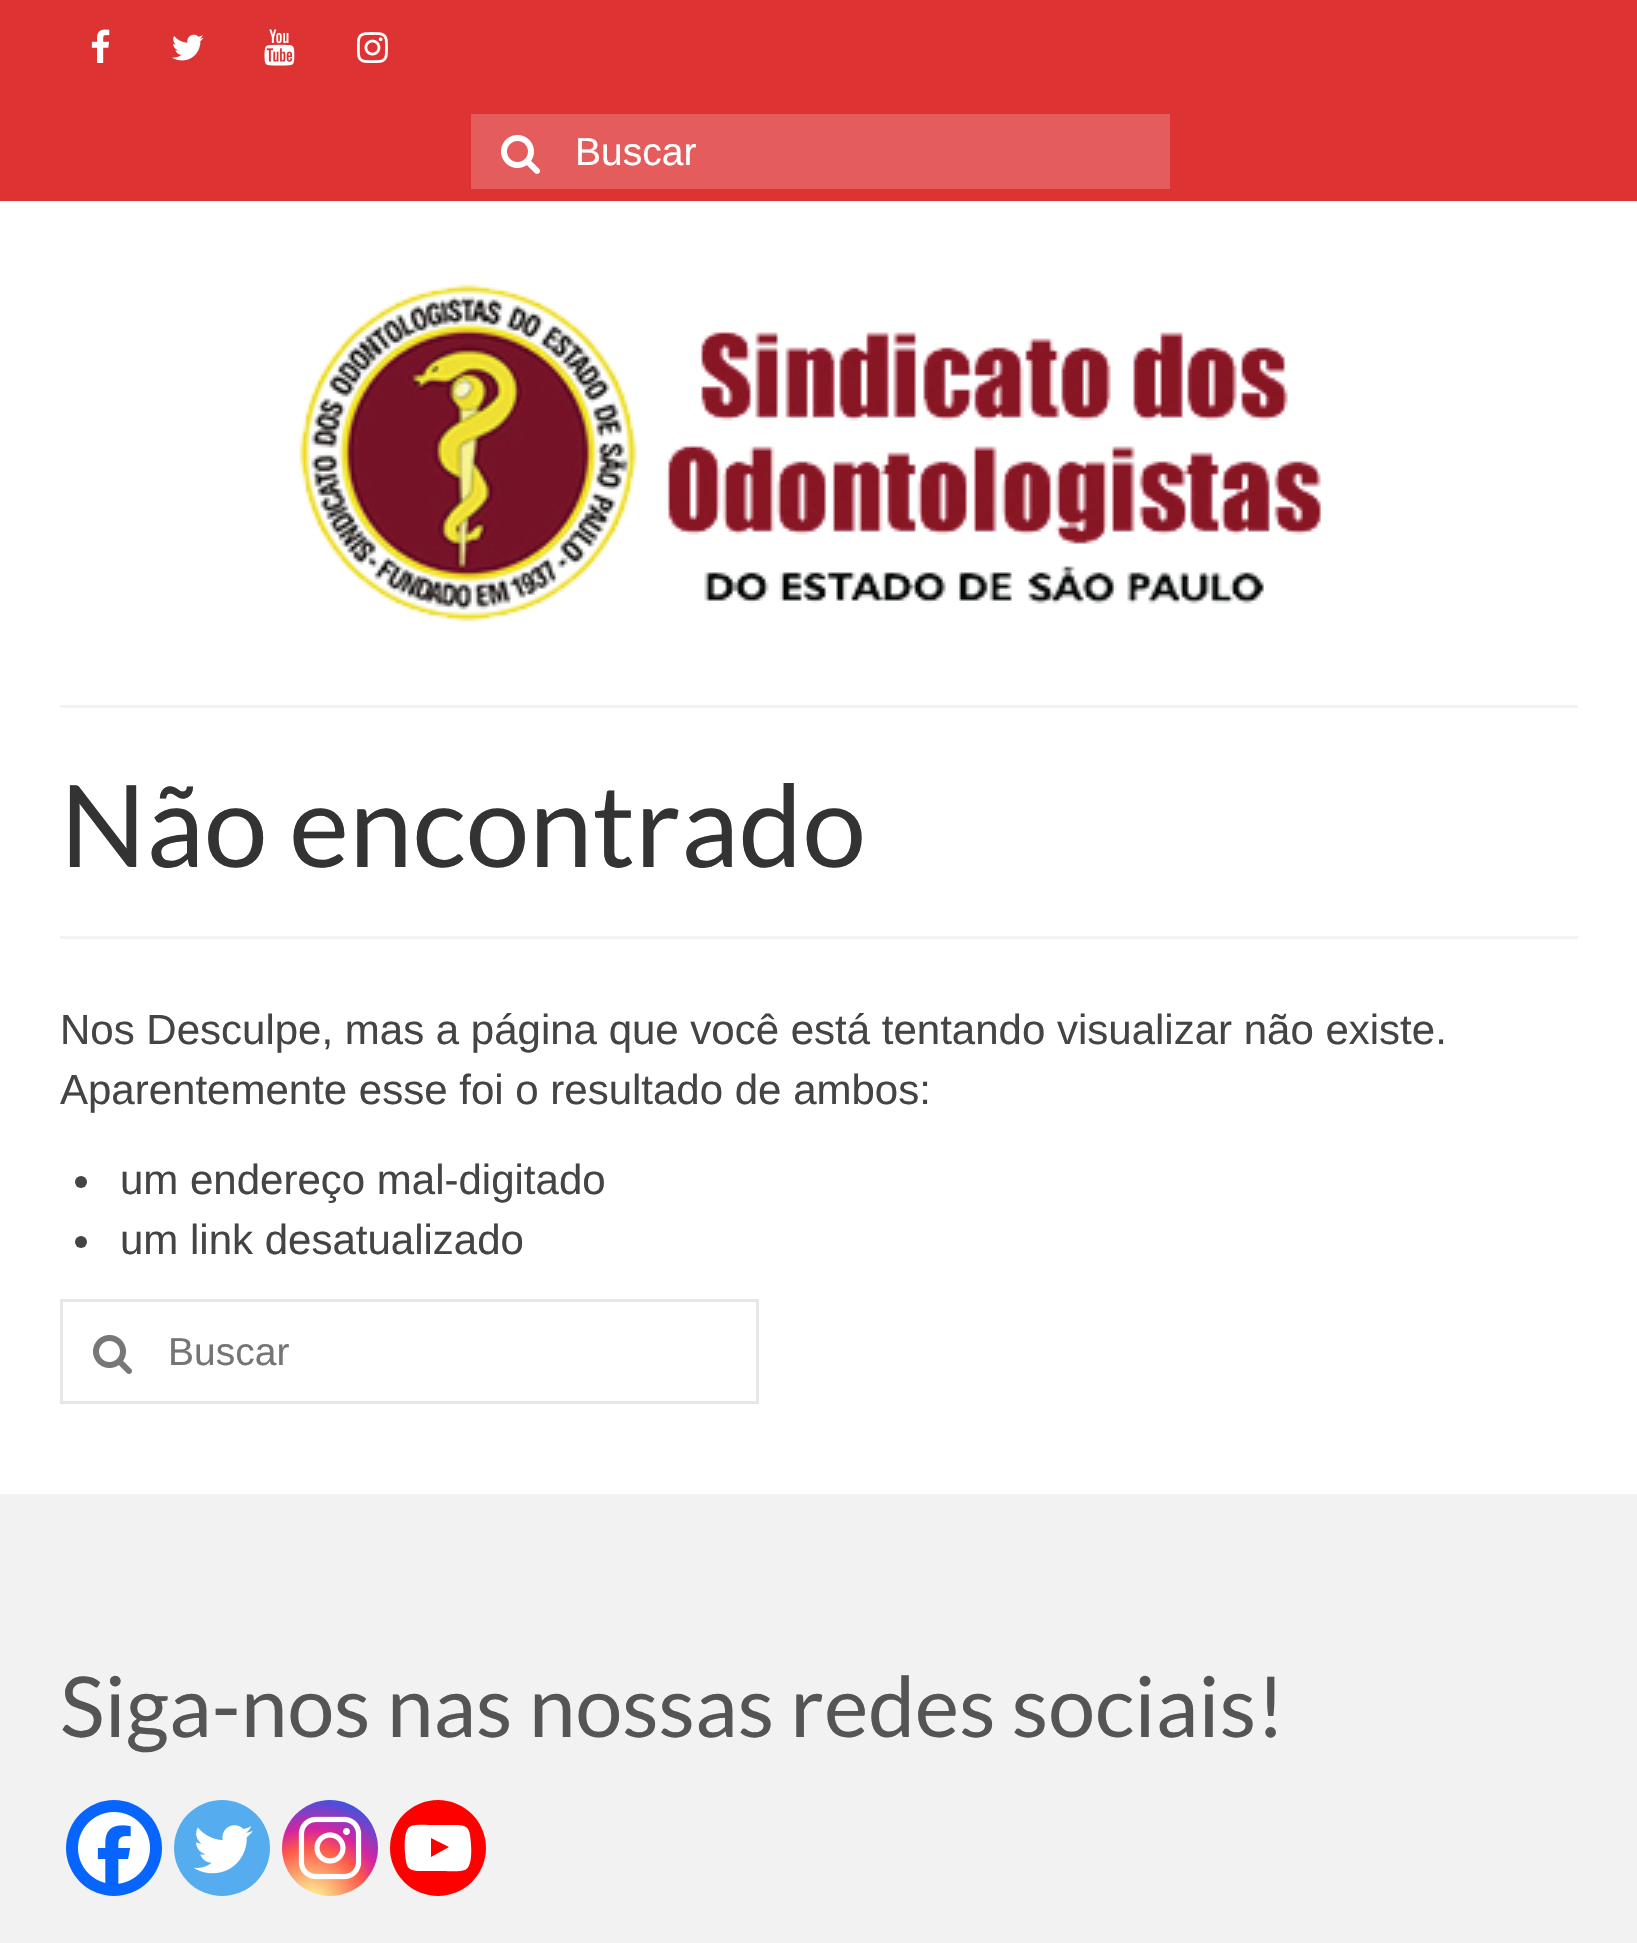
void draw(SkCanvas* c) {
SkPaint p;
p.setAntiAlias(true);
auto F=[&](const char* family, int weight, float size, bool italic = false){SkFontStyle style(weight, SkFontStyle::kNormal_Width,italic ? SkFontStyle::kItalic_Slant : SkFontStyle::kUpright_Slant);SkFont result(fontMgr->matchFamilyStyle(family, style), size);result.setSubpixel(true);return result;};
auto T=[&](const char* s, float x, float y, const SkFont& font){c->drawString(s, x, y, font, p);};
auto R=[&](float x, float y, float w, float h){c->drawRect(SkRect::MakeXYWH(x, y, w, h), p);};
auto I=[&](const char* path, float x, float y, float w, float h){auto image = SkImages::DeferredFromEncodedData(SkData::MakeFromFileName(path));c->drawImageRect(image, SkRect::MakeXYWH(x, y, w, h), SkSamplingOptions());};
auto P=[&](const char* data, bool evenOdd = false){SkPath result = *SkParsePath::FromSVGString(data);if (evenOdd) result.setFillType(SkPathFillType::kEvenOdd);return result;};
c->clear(0xffffffff);
p.setColor(0xffdd3333);
R(0,0,1637,201);
I("1.png",91,29,19,34);
I("2.png",172,34,32,27);
I("3.png",264,29,31,37);
I("4.png",357,32,31,31);
p.setColor(0xffe45c5c);
R(471,114,699,75);
I("5.png",501,135,39,39);
auto f1 = F("Liberation Sans",400,39);
p.setColor(0xffffffff);
T("Buscar",575,165,f1);
I("6.png",299,284,1025,338);
p.setColor(0xfff2f2f2);
R(60,705,1518,3);
R(60,936,1518,3);
auto f2 = F("Lato",400,114);
p.setColor(0xff333333);
T("Não encontrado",60,867,f2);
auto f3 = F("Liberation Sans",400,42);
p.setColor(0xff444444);
T("Nos Desculpe, mas a página que você está tentando visualizar não existe.",60,1044,f3);
T("Aparentemente esse foi o resultado de ambos:",60,1104,f3);
c->drawCircle(81,1182,6,p);
T("um endereço mal-digitado",120,1194,f3);
c->drawCircle(81,1242,6,p);
T("um link desatualizado",120,1254,f3);
p.setStroke(true);
p.setStrokeWidth(3);
p.setColor(0xffe7e7e7);
c->drawRect(SkRect::MakeXYWH(61.5,1300.5,696,102),p);
I("7.png",93,1335,39,39);
p.setStroke(false);
p.setColor(0xff757575);
T("Buscar",168,1365,f1);
p.setColor(0xfff2f2f2);
R(0,1494,1637,449);
auto f4 = F("Lato",400,84);
p.setColor(0xff555555);
T("Siga-nos nas nossas redes sociais!",60,1737,f4);
p.setColor(0xff0765fe);
c->drawCircle(114,1848,48,p);
I("8.png",78,1812,72,72);
p.setColor(0xff55acee);
c->drawCircle(222,1848,48,p);
I("9.png",193,1825,60,49);
{
const SkColor colors[] = {0xfffdf497,0xfffdf497,0xfffd5949,0xffd6249f,0xff285aeb};
const float stops[] = {0,.05,.45,.6,.9};
p.setShader(SkGradientShader::MakeRadial({311,1903}, 123, colors, stops, 5, SkTileMode::kClamp));
p.setAlpha(255);
}
c->drawCircle(330,1848,48,p);
I("10.png",298,1816,64,64);
p.setShader(nullptr);
p.setColor(0xffff0000);
c->drawCircle(438,1848,48,p);
p.setColor(0xffffffff);
c->drawPath(P("M470 1835c-1-10-8-10-16-10h-21c-5 0-17-1-22 1c-9 4-6 28-5 35c1 11 10 10 19 10h18c5 0 17 1 22-1c9-4 6-28 5-35zm-39 22v-19l18 9z"),p);
}
